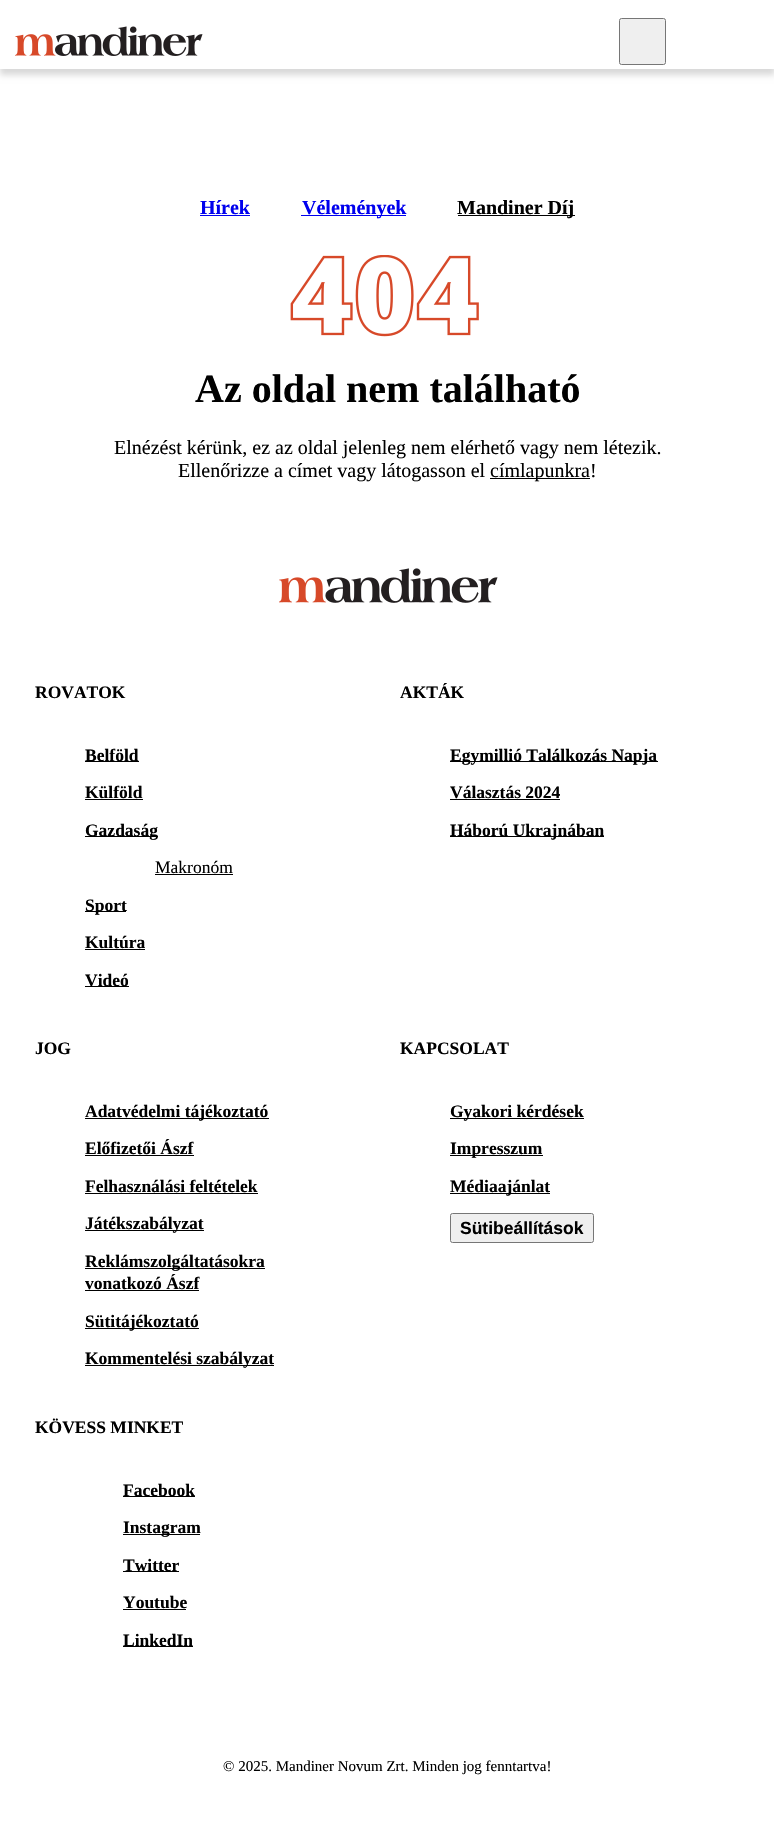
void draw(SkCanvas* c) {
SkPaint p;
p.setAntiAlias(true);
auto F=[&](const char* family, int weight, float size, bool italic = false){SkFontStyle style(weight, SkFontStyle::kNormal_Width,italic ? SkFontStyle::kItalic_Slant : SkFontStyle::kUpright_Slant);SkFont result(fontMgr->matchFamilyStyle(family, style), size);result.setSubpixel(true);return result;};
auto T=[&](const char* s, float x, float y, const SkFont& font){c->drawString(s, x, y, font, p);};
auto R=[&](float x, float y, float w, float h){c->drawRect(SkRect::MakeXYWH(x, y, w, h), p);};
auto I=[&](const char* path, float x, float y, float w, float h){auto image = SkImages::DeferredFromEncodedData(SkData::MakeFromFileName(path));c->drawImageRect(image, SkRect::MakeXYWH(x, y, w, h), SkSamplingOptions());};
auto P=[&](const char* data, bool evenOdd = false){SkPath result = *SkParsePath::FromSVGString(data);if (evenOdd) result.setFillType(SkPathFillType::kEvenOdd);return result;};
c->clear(0xffffffff);
c->save();
c->clipPath(P("M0 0h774v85h-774zm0 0h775v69h-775z",true),true);
p.setColor(0x26000000);
p.setMaskFilter(SkMaskFilter::MakeBlur(kNormal_SkBlurStyle, 3));
c->drawRect(SkRect::MakeXYWH(0,6,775,69),p);
p.setMaskFilter(nullptr);
c->restore();
I("1.png",15,26,188,30);
p.setColor(0xffefefef);
c->drawRoundRect(SkRect::MakeXYWH(619.5,18.5,46,46),2,2,p);
p.setStroke(true);
p.setStrokeWidth(1);
p.setColor(0xff767676);
c->drawRoundRect(SkRect::MakeXYWH(619.5,18.5,46,46),2,2,p);
auto f1 = F("Liberation Serif",700,20);
p.setStroke(false);
p.setColor(0xff0000ee);
T("Hírek",200,214,f1);
R(200,215,50,1);
R(301,215,105,1);
T("Vélemények",302,214,f1);
p.setColor(0xff000000);
R(458,215,117,1);
T("Mandiner Díj",457,214,f1);
I("2.png",290,255,189,82);
auto f2 = F("Liberation Serif",700,40);
T("Az oldal nem található",195,402,f2);
auto f3 = F("Liberation Serif",400,20);
T("Elnézést kérünk, ez az oldal jelenleg nem elérhető vagy nem létezik.",114,454,f3);
T("Ellenőrizze a címet vagy látogasson el",178,477,f3);
R(490,478,100,1);
T("címlapunkra!",490,477,f3);
I("3.png",279,568,219,35);
auto f4 = F("Liberation Serif",700,17.5);
T("ROVATOK",35,698,f4);
R(85,761,54,1);
T("Belföld",85,761,f4);
T("Külföld",85,798,f4);
R(85,799,58,1);
R(85,836,73,1);
T("Gazdaság",85,836,f4);
auto f5 = F("Liberation Serif",400,17.5);
T("Makronóm",155,873,f5);
R(155,874,78,1);
R(85,911,41,1);
T("Sport",85,911,f4);
T("Kultúra",85,948,f4);
R(85,949,60,1);
R(85,986,44,1);
T("Videó",85,986,f4);
T("AKTÁK",400,698,f4);
R(450,761,208,1);
T("Egymillió Találkozás Napja",450,761,f4);
T("Választás 2024",450,798,f4);
R(450,799,110,1);
R(450,836,154,1);
T("Háború Ukrajnában",450,836,f4);
T("JOG",35,1054,f4);
R(85,1118,184,1);
T("Adatvédelmi tájékoztató",85,1117,f4);
T("Előfizetői Ászf",85,1154,f4);
R(85,1155,109,1);
T("Felhasználási feltételek",85,1192,f4);
R(85,1193,173,1);
R(85,1230,119,1);
T("Játékszabályzat",85,1229,f4);
R(85,1268,180,1);
T("Reklámszolgáltatásokra",85,1267,f4);
T("vonatkozó Ászf",85,1289,f4);
R(85,1290,114,1);
R(85,1328,114,1);
T("Sütitájékoztató",85,1327,f4);
R(85,1365,189,1);
T("Kommentelési szabályzat",85,1364,f4);
T("KAPCSOLAT",400,1054,f4);
R(450,1118,134,1);
T("Gyakori kérdések",450,1117,f4);
R(450,1155,93,1);
T("Impresszum",450,1154,f4);
R(450,1193,100,1);
T("Médiaajánlat",450,1192,f4);
p.setColor(0xffefefef);
c->drawRoundRect(SkRect::MakeXYWH(450.5,1213.5,143,29),2,2,p);
p.setStroke(true);
p.setColor(0xff767676);
c->drawRoundRect(SkRect::MakeXYWH(450.5,1213.5,143,29),2,2,p);
auto f6 = F("Liberation Sans",700,17.5);
p.setStroke(false);
p.setColor(0xff000000);
T("Sütibeállítások",460,1234,f6);
T("KÖVESS MINKET",35,1433,f4);
R(123,1496,72,1);
T("Facebook",123,1496,f4);
R(123,1534,77,1);
T("Instagram",123,1533,f4);
R(123,1571,56,1);
T("Twitter",123,1571,f4);
T("Youtube",123,1608,f4);
R(123,1609,63,1);
R(123,1646,70,1);
T("LinkedIn",123,1646,f4);
auto f7 = F("Liberation Serif",400,15);
T("© 2025. Mandiner Novum Zrt. Minden jog fenntartva!",223,1771,f7);
}
